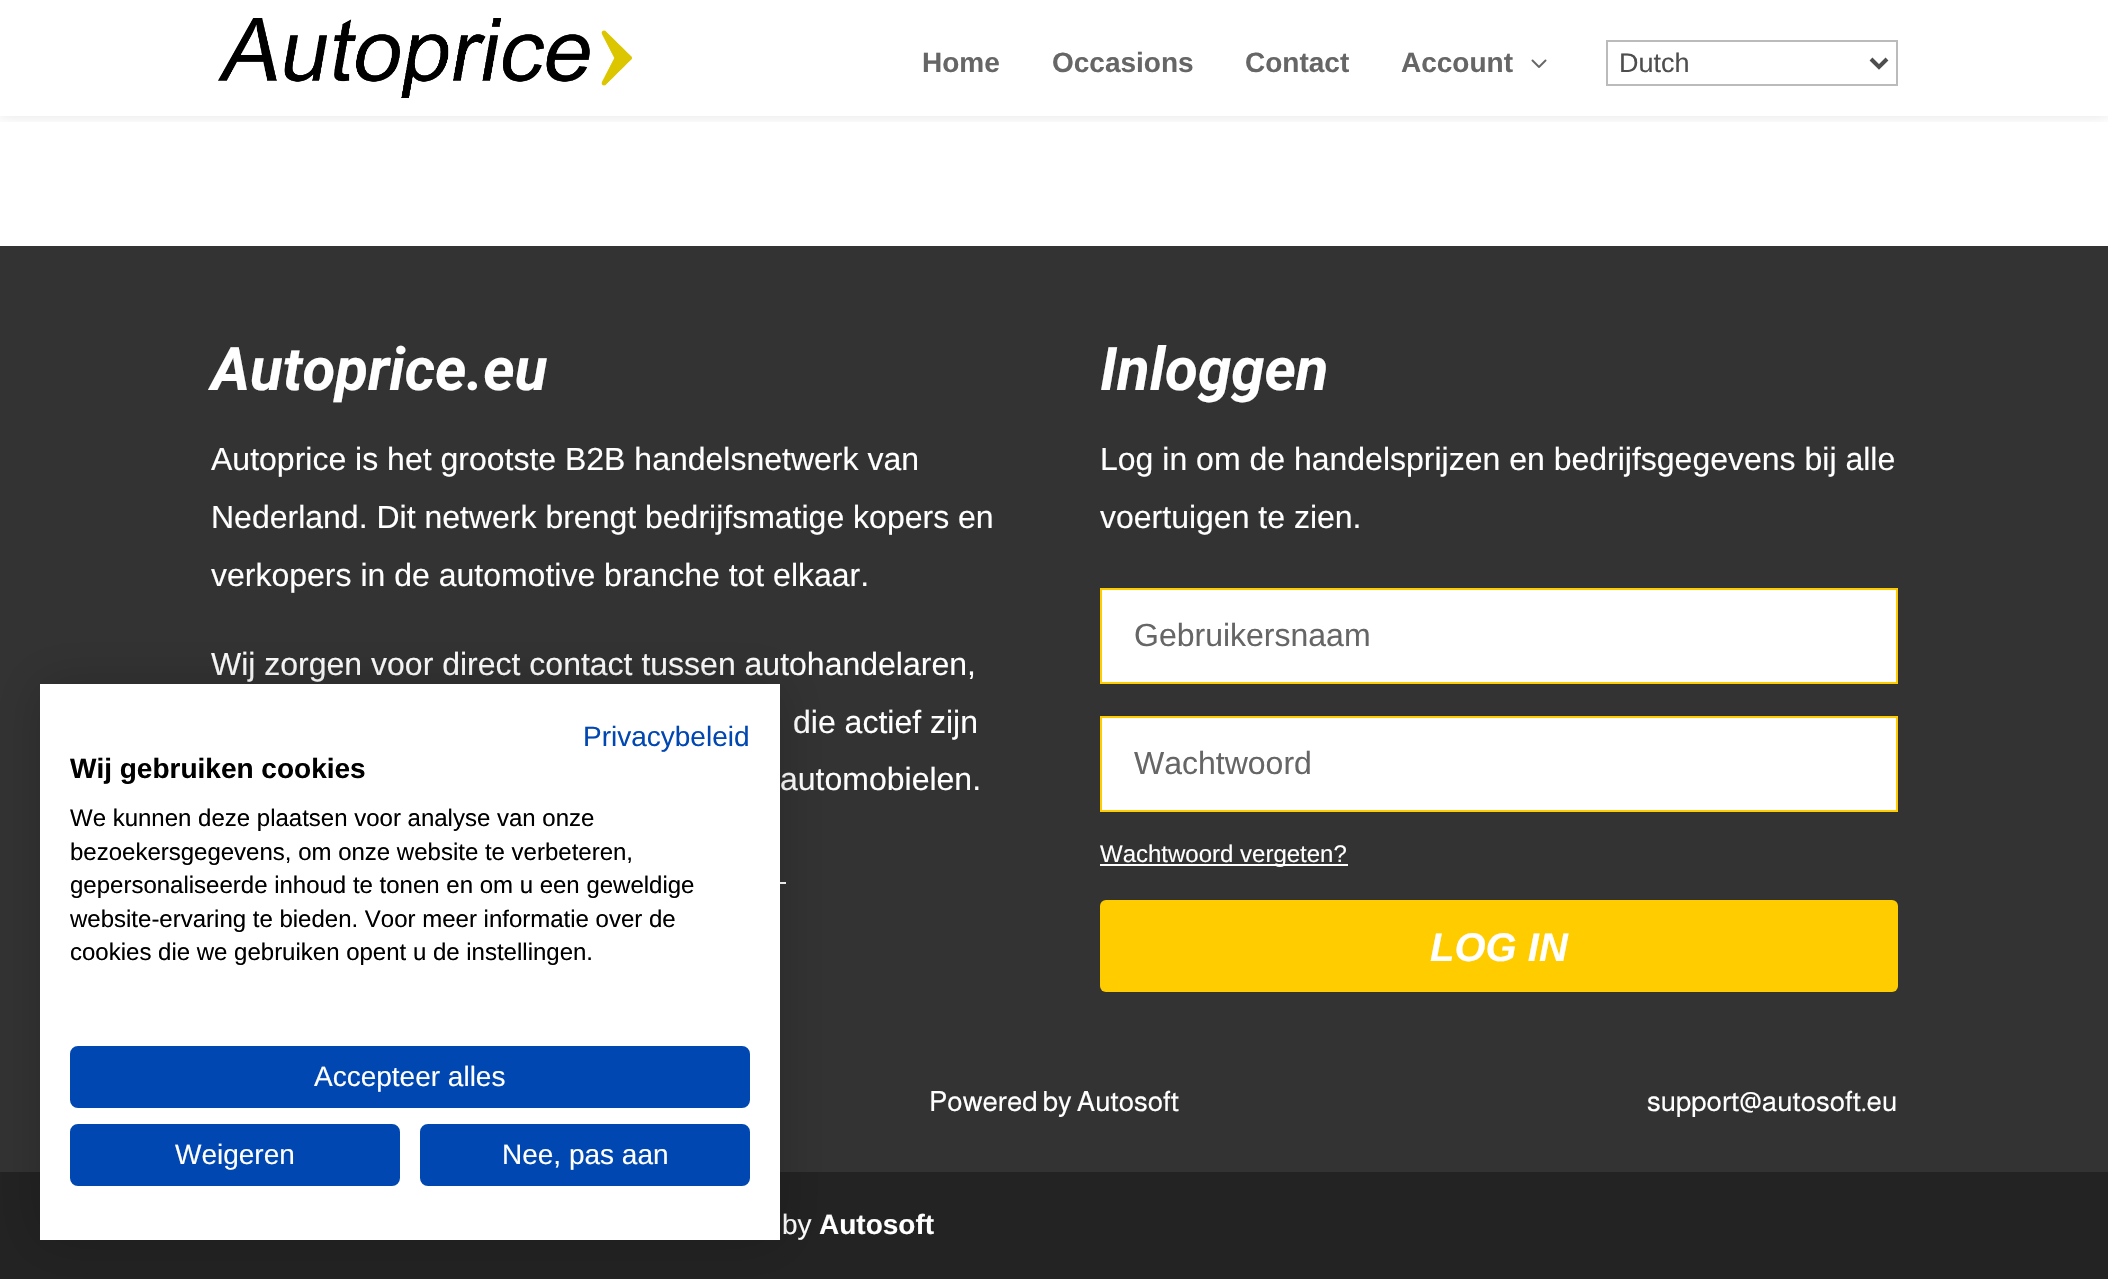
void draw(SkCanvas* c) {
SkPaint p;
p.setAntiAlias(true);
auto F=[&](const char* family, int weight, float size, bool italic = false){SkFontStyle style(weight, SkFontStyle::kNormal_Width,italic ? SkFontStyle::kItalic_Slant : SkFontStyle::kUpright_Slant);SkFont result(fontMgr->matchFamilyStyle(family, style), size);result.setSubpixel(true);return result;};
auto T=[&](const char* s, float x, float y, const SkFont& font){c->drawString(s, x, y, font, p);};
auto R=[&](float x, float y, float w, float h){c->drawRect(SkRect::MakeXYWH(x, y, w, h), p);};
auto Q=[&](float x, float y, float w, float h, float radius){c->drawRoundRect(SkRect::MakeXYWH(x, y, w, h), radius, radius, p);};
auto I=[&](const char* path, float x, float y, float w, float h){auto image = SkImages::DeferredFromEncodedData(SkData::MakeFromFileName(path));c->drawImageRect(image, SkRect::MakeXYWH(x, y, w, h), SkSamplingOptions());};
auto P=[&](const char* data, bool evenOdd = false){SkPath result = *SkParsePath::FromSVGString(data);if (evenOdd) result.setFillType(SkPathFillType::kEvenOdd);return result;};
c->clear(0xffffffff);
c->save();
c->clipRect(SkRect::MakeXYWH(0,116,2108,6));
p.setColor(0x1a000000);
p.setMaskFilter(SkMaskFilter::MakeBlur(kNormal_SkBlurStyle, 7));
c->drawRect(SkRect::MakeXYWH(0,0,2108,116),p);
p.setMaskFilter(nullptr);
c->restore();
I("1.png",218,18,414,80);
auto f1 = F("Liberation Sans",700,28);
p.setColor(0xff666666);
T("Home",922,72,f1);
T("Occasions",1052,72,f1);
T("Contact",1245,72,f1);
T("Account",1401,72,f1);
I("2.png",1531,59,16,9);
p.setStroke(true);
p.setStrokeWidth(2);
p.setColor(0xffbbbbbb);
c->drawRect(SkRect::MakeXYWH(1607,41,290,44),p);
p.setStrokeWidth(4);
p.setColor(0xff4e4e4e);
c->drawPath(P("M1871 59l8 8l8-8"),p);
auto f2 = F("Liberation Sans",400,27);
p.setStroke(false);
T("Dutch",1619,72,f2);
p.setColor(0xff333333);
R(0,246,2108,926);
auto f3 = F("Roboto",700,60,true);
p.setColor(0xffffffff);
T("Autoprice.eu",211,390,f3);
auto f4 = F("Liberation Sans",400,32);
T("Autoprice is het grootste B2B handelsnetwerk van",211,470,f4);
T("Nederland. Dit netwerk brengt bedrijfsmatige kopers en",211,528,f4);
T("verkopers in de automotive branche tot elkaar.",211,586,f4);
T("Wij zorgen voor direct contact tussen autohandelaren,",211,675,f4);
T("die actief zijn",793,733,f4);
T("automobielen.",780,790,f4);
R(780,882,6,2);
T("Inloggen",1100,390,f3);
T("Log in om de handelsprijzen en bedrijfsgegevens bij alle",1100,470,f4);
T("voertuigen te zien.",1100,528,f4);
c->drawRect(SkRect::MakeXYWH(1101,589,796,94),p);
p.setStroke(true);
p.setStrokeWidth(2);
p.setColor(0xffffcc00);
c->drawRect(SkRect::MakeXYWH(1101,589,796,94),p);
p.setStroke(false);
p.setColor(0xff666666);
T("Gebruikersnaam",1134,646,f4);
p.setColor(0xffffffff);
c->drawRect(SkRect::MakeXYWH(1101,717,796,94),p);
p.setStroke(true);
p.setColor(0xffffcc00);
c->drawRect(SkRect::MakeXYWH(1101,717,796,94),p);
p.setStroke(false);
p.setColor(0xff666666);
T("Wachtwoord",1134,774,f4);
p.setColor(0xffffffff);
R(1100,864,248,2);
auto f5 = F("Liberation Sans",400,24);
T("Wachtwoord vergeten?",1100,862,f5);
p.setColor(0xffffcc00);
Q(1100,900,798,92,6);
auto f6 = F("Liberation Sans",700,40,true);
p.setColor(0xffffffff);
T("LOG IN",1430,961,f6);
auto f7 = F("Almarai",400,28);
T("Powered by Autosoft",929,1111,f7);
T("support@autosoft.eu",1647,1111,f7);
p.setColor(0xff232323);
R(0,1172,2108,107);
auto f8 = F("Liberation Sans",400,28);
p.setColor(0xffffffff);
T("by",782,1234,f8);
T("Autosoft",819,1234,f1);
p.setColor(0x33000000);
p.setMaskFilter(SkMaskFilter::MakeBlur(kNormal_SkBlurStyle, 24));
c->drawRect(SkRect::MakeXYWH(40,684,740,556),p);
p.setMaskFilter(nullptr);
p.setColor(0xffffffff);
R(40,684,740,556);
p.setColor(0xff0047b2);
T("Privacybeleid",583,746,f8);
p.setColor(0xff000000);
T("Wij gebruiken cookies",70,778,f1);
T("We kunnen deze plaatsen voor analyse van onze",70,826,f5);
T("bezoekersgegevens, om onze website te verbeteren,",70,860,f5);
T("gepersonaliseerde inhoud te tonen en om u een geweldige",70,893,f5);
T("website-ervaring te bieden. Voor meer informatie over de",70,927,f5);
T("cookies die we gebruiken opent u de instellingen.",70,960,f5);
p.setColor(0xff0047b2);
c->drawRoundRect(SkRect::MakeXYWH(71,1047,678,60),7,7,p);
p.setStroke(true);
c->drawRoundRect(SkRect::MakeXYWH(71,1047,678,60),7,7,p);
p.setStroke(false);
p.setColor(0xffffffff);
T("Accepteer alles",314,1086,f8);
p.setColor(0xff0047b2);
c->drawRoundRect(SkRect::MakeXYWH(71,1125,328,60),7,7,p);
p.setStroke(true);
c->drawRoundRect(SkRect::MakeXYWH(71,1125,328,60),7,7,p);
p.setStroke(false);
p.setColor(0xffffffff);
T("Weigeren",175,1164,f8);
p.setColor(0xff0047b2);
c->drawRoundRect(SkRect::MakeXYWH(421,1125,328,60),7,7,p);
p.setStroke(true);
c->drawRoundRect(SkRect::MakeXYWH(421,1125,328,60),7,7,p);
p.setStroke(false);
p.setColor(0xffffffff);
T("Nee, pas aan",502,1164,f8);
}
